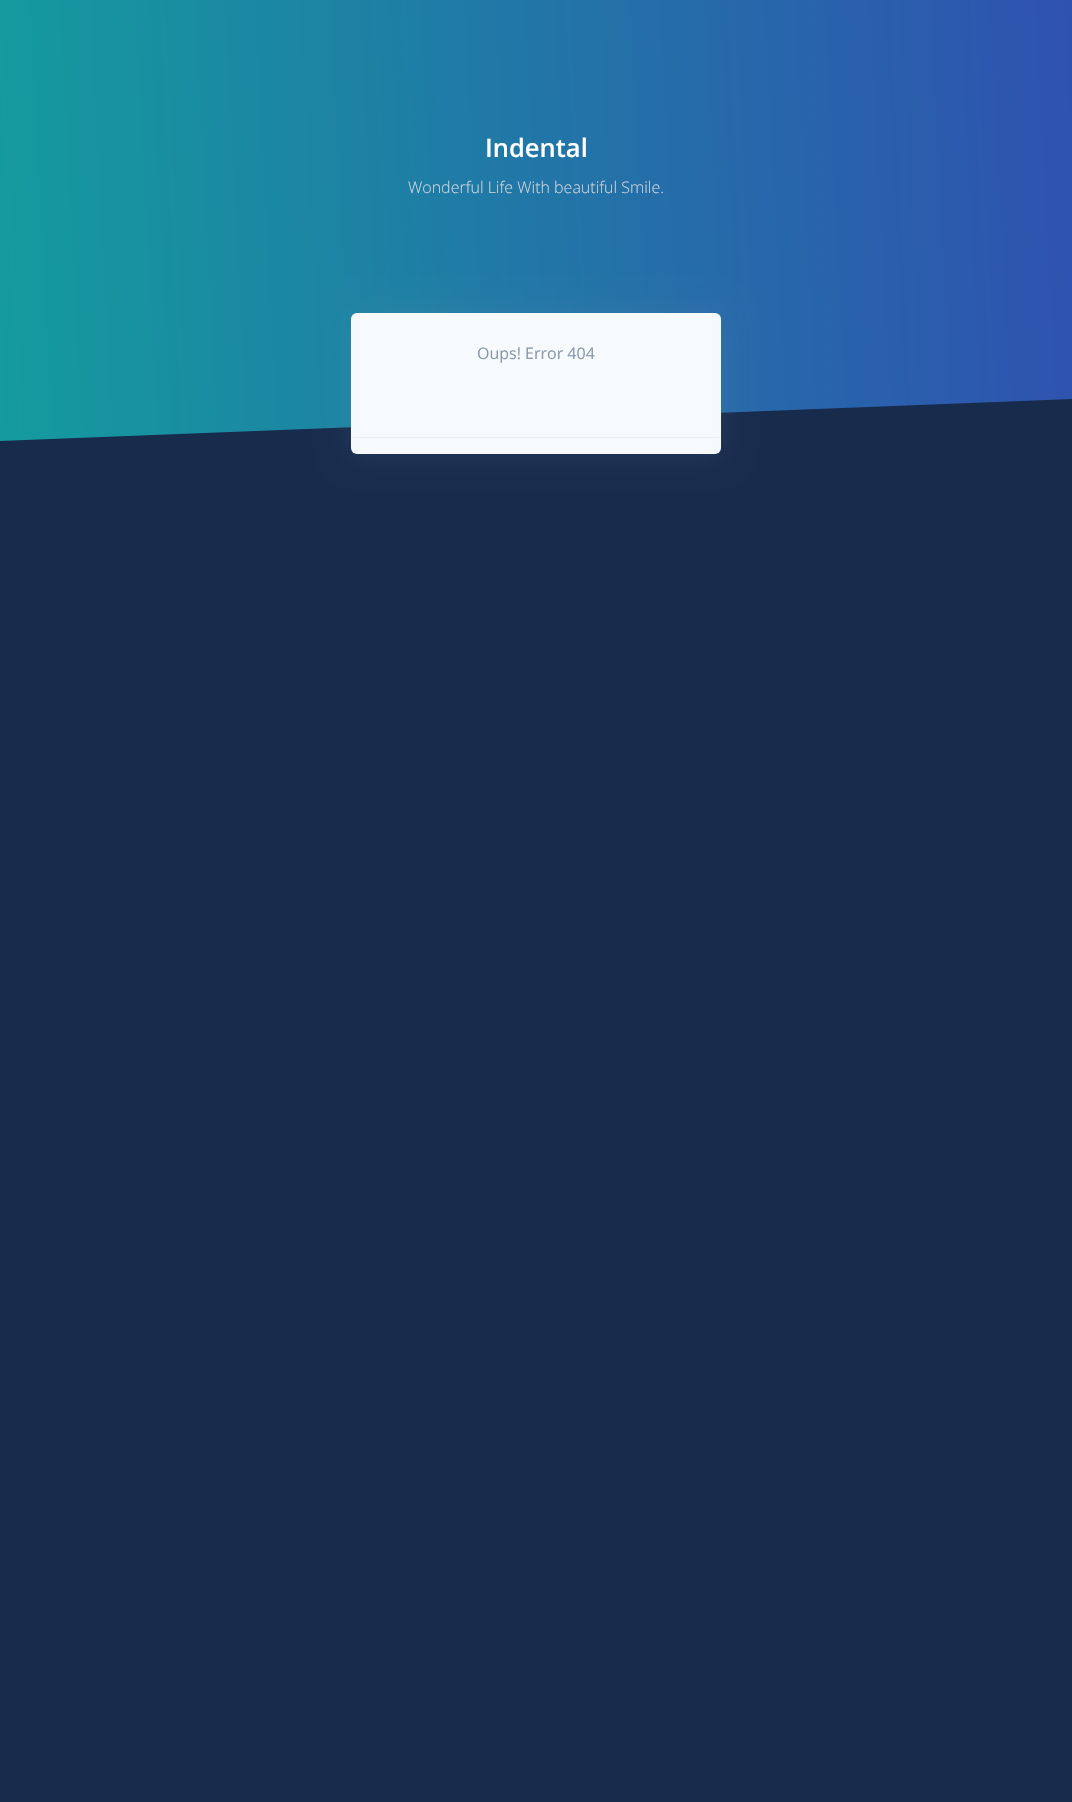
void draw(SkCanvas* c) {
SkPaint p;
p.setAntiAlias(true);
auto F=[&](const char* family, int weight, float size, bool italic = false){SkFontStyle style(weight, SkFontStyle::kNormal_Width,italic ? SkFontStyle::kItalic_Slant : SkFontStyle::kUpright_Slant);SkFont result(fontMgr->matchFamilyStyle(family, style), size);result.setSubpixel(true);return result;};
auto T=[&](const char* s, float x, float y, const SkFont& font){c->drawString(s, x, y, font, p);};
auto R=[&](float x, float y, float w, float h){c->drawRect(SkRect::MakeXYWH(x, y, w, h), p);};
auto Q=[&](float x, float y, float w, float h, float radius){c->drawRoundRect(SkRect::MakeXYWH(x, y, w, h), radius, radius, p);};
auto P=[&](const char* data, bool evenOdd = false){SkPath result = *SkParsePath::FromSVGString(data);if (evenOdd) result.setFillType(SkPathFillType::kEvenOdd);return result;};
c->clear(0xff172b4d);
{
const SkColor colors[] = {0xff149b9e,0xff2f52b0};
const float stops[] = {0,1};
const SkPoint ends[] = {{-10,249}, {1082,192}};
p.setShader(SkGradientShader::MakeLinear(ends, colors, stops, 2, SkTileMode::kClamp));
p.setAlpha(255);
}
R(0,0,1072,441);
auto f1 = F("Open Sans",600,25.5);
p.setShader(nullptr);
p.setColor(0xffffffff);
T("Indental",485,157,f1);
auto f2 = F("Open Sans",300,16);
p.setColor(0xffced4da);
T("Wonderful Life With beautiful Smile.",408,193,f2);
p.setColor(0xff172b4d);
c->drawPath(P("M1072 399v42h-1072z"),p);
p.setColor(0x268898aa);
p.setMaskFilter(SkMaskFilter::MakeBlur(kNormal_SkBlurStyle, 16));
c->drawRoundRect(SkRect::MakeXYWH(351,313,370,141),6,6,p);
p.setMaskFilter(nullptr);
p.setColor(0xfff7fafc);
Q(351,313,370,141,6);
p.setColor(0xffebeeef);
R(351,437,370,1);
auto f3 = F("Open Sans",400,16);
p.setColor(0xff8898aa);
T("Oups! Error 404",477,359,f3);
}
